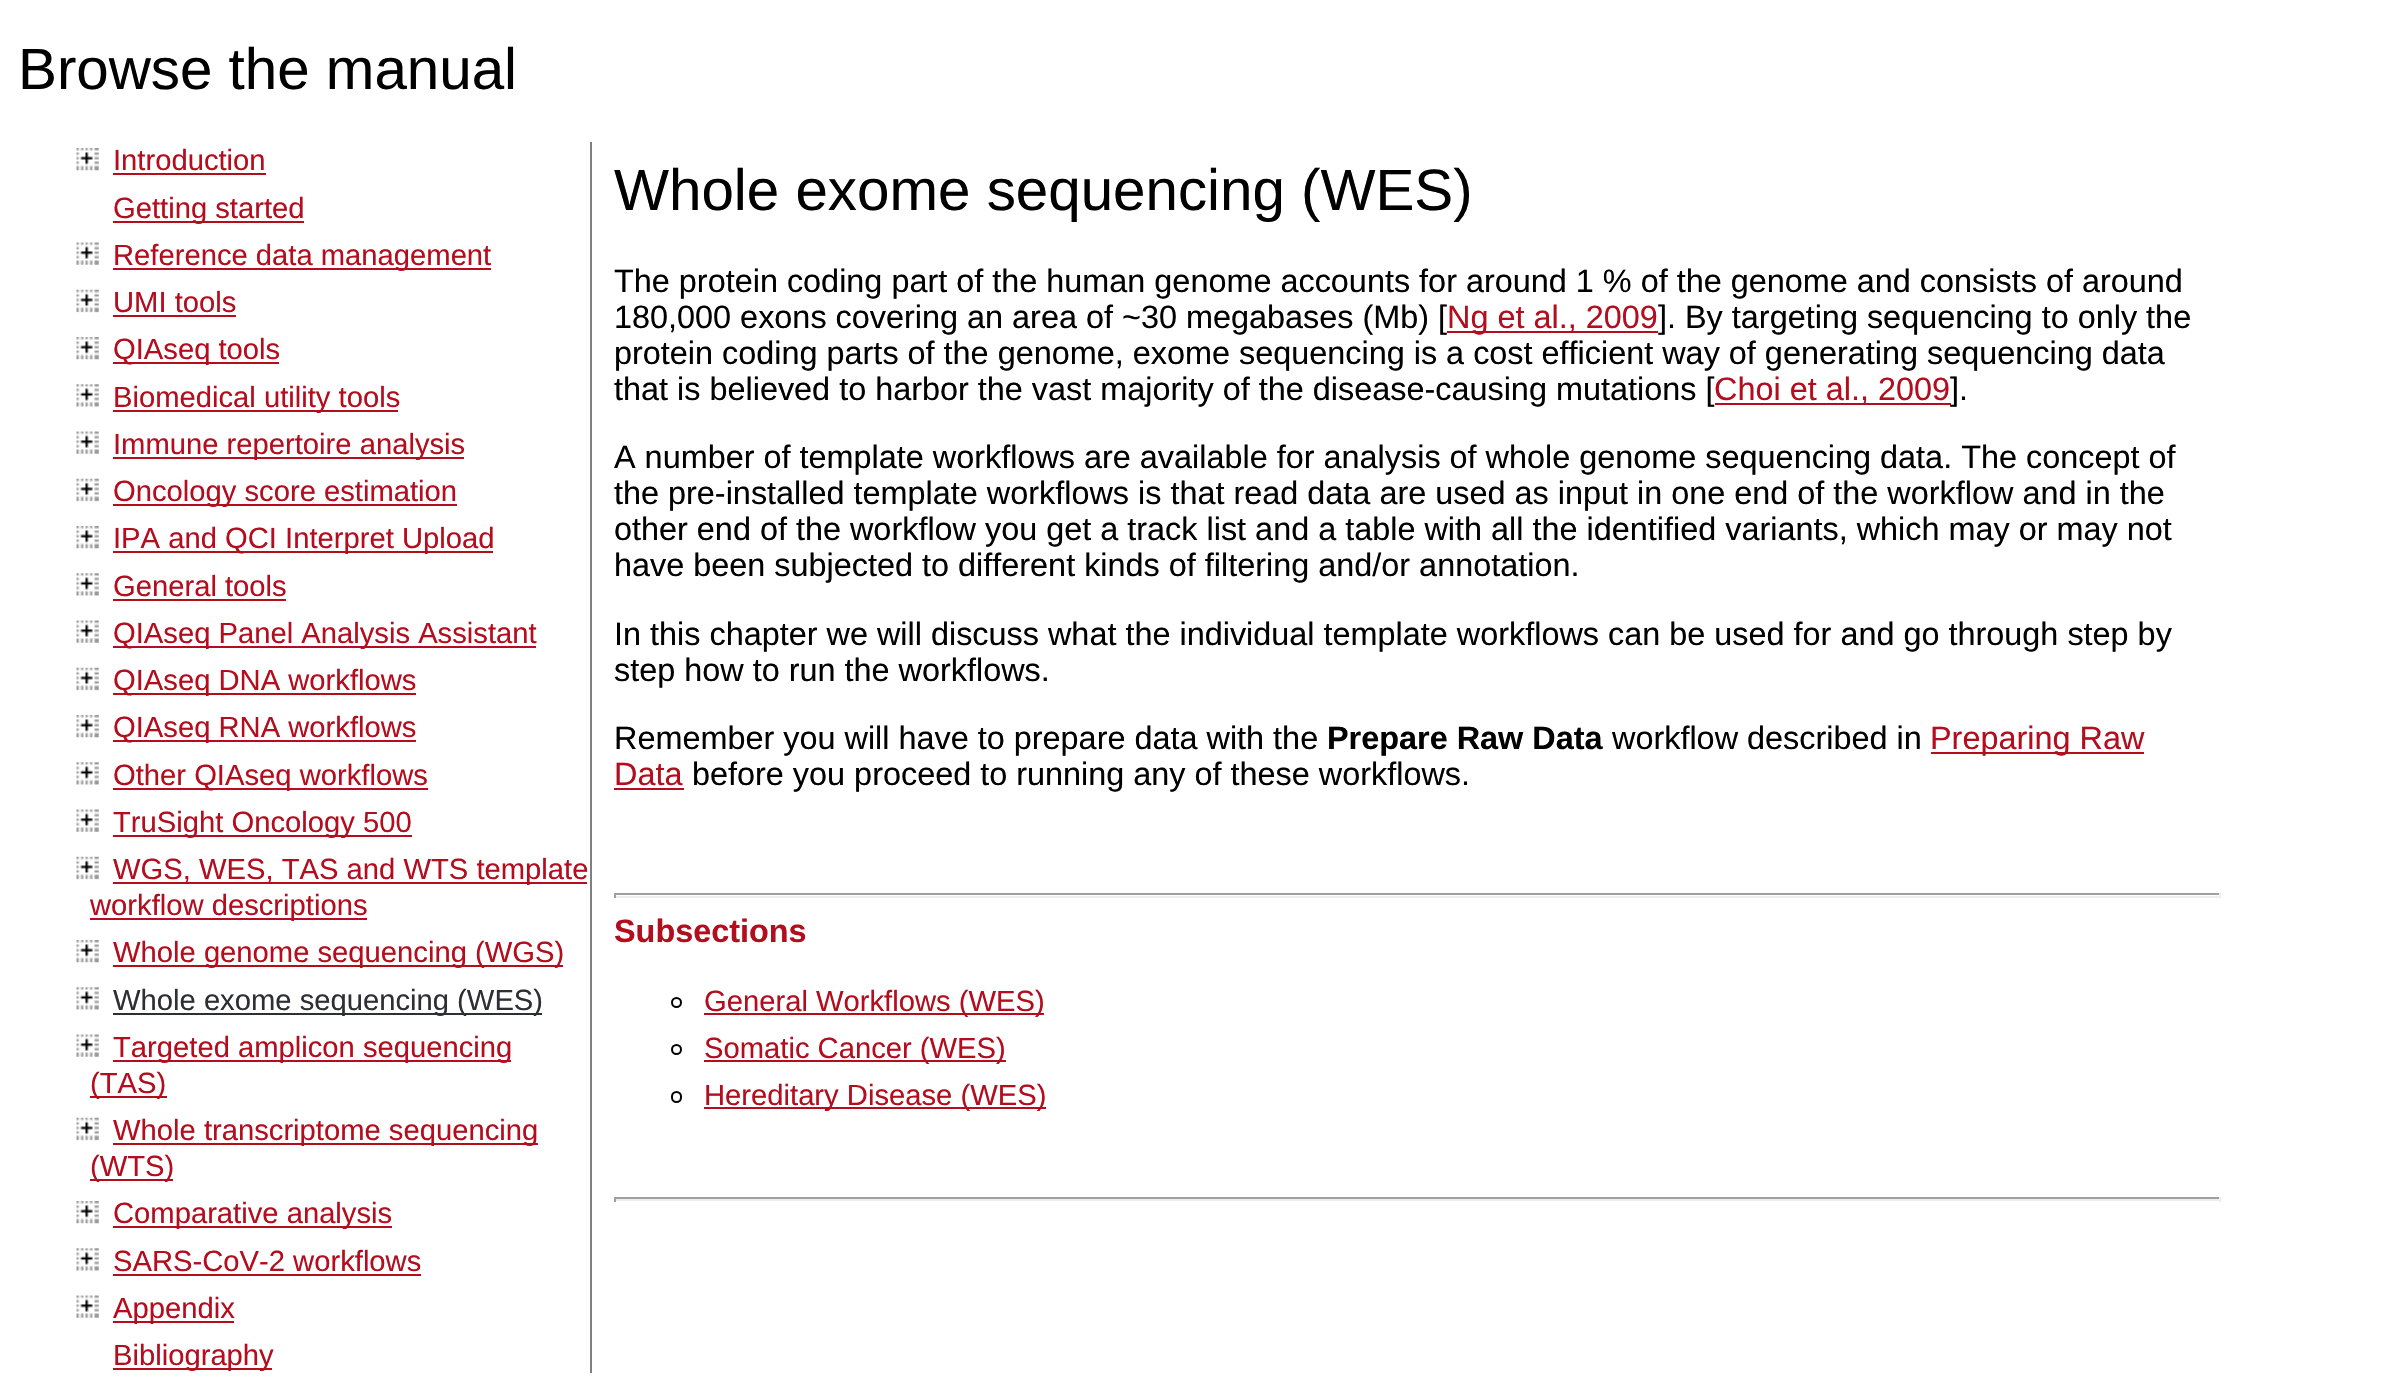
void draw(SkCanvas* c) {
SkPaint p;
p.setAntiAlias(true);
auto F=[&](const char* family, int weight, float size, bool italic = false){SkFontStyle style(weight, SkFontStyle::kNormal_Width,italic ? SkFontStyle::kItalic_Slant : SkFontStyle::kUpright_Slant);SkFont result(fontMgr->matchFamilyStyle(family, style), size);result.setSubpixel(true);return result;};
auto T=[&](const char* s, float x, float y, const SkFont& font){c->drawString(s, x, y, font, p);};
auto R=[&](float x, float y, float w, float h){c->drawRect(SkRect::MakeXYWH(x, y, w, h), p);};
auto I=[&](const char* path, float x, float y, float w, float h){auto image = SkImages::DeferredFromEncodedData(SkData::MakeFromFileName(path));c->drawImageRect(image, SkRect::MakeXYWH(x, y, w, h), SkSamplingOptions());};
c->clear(0xffffffff);
auto f1 = F("Liberation Sans",400,58.3);
p.setColor(0xff000000);
T("Browse the manual",18,89,f1);
p.setColor(0xff808080);
R(590,142,2,1231);
I("1.png",76,148,23,23);
auto f2 = F("Liberation Sans",400,29.2);
p.setColor(0xffb40d1e);
T("Introduction",113,170,f2);
R(113,173,153,2);
R(113,221,191,2);
T("Getting started",113,218,f2);
I("2.png",76,242,23,23);
R(113,268,378,2);
T("Reference data management",113,265,f2);
I("3.png",76,289,23,24);
T("UMI tools",113,312,f2);
R(113,315,123,2);
I("1.png",76,337,23,23);
R(113,362,166,2);
T("QIAseq tools",113,359,f2);
I("4.png",76,384,23,23);
R(113,410,285,2);
T("Biomedical utility tools",113,407,f2);
I("2.png",76,431,23,23);
R(113,457,351,2);
T("Immune repertoire analysis",113,454,f2);
I("3.png",76,478,23,24);
R(113,504,344,2);
T("Oncology score estimation",113,501,f2);
I("1.png",76,526,23,23);
R(113,551,380,2);
T("IPA and QCI Interpret Upload",113,548,f2);
I("4.png",76,573,23,23);
T("General tools",113,596,f2);
R(113,599,173,2);
I("2.png",76,620,23,23);
R(113,646,423,2);
T("QIAseq Panel Analysis Assistant",113,643,f2);
I("3.png",76,667,23,24);
R(113,693,303,2);
T("QIAseq DNA workflows",113,690,f2);
I("1.png",76,715,23,23);
R(113,740,303,2);
T("QIAseq RNA workflows",113,737,f2);
I("4.png",76,762,23,23);
R(113,788,315,2);
T("Other QIAseq workflows",113,785,f2);
I("2.png",76,809,23,23);
R(113,835,299,2);
T("TruSight Oncology 500",113,832,f2);
I("3.png",76,856,23,24);
R(113,882,474,2);
T("WGS, WES, TAS and WTS template",113,879,f2);
R(90,918,277,2);
T("workflow descriptions",90,915,f2);
I("1.png",76,940,23,23);
R(113,965,450,2);
T("Whole genome sequencing (WGS)",113,962,f2);
I("4.png",76,987,23,23);
p.setColor(0xff2e2e35);
R(113,1013,429,2);
T("Whole exome sequencing (WES)",113,1010,f2);
I("2.png",76,1034,23,23);
p.setColor(0xffb40d1e);
R(113,1060,398,2);
T("Targeted amplicon sequencing",113,1057,f2);
R(90,1096,77,2);
T("(TAS)",90,1093,f2);
I("3.png",76,1117,23,24);
R(113,1143,425,2);
T("Whole transcriptome sequencing",113,1140,f2);
R(90,1179,83,2);
T("(WTS)",90,1176,f2);
I("1.png",76,1201,23,23);
R(113,1226,279,2);
T("Comparative analysis",113,1223,f2);
I("4.png",76,1248,23,23);
T("SARS-CoV-2 workflows",113,1271,f2);
R(113,1274,308,2);
I("2.png",76,1295,23,23);
R(113,1321,121,2);
T("Appendix",113,1318,f2);
R(113,1368,159,2);
T("Bibliography",113,1365,f2);
p.setColor(0xff000000);
T("Whole exome sequencing (WES)",614,210,f1);
auto f3 = F("Liberation Sans",400,32.4);
T("The protein coding part of the human genome accounts for around 1 % of the genome and consists of around",614,292,f3);
T("180,000 exons covering an area of ~30 megabases (Mb) [",614,328,f3);
p.setColor(0xffb40d1e);
R(1447,331,211,2);
T("Ng et al., 2009",1447,328,f3);
p.setColor(0xff000000);
T("]. By targeting sequencing to only the",1658,328,f3);
T("protein coding parts of the genome, exome sequencing is a cost efficient way of generating sequencing data",614,364,f3);
T("that is believed to harbor the vast majority of the disease-causing mutations [",614,400,f3);
p.setColor(0xffb40d1e);
R(1715,403,236,2);
T("Choi et al., 2009",1714,400,f3);
p.setColor(0xff000000);
T("].",1950,400,f3);
T("A number of template workflows are available for analysis of whole genome sequencing data. The concept of",614,468,f3);
T("the pre-installed template workflows is that read data are used as input in one end of the workflow and in the",614,504,f3);
T("other end of the workflow you get a track list and a table with all the identified variants, which may or may not",614,540,f3);
T("have been subjected to different kinds of filtering and/or annotation.",614,576,f3);
T("In this chapter we will discuss what the individual template workflows can be used for and go through step by",614,645,f3);
T("step how to run the workflows.",614,681,f3);
T("Remember you will have to prepare data with the",614,749,f3);
auto f4 = F("Liberation Sans",700,32.4);
T("Prepare Raw Data",1327,749,f4);
T("workflow described in",1612,749,f3);
p.setColor(0xffb40d1e);
R(1931,752,213,2);
T("Preparing Raw",1930,749,f3);
T("Data",614,785,f3);
R(614,788,70,2);
p.setColor(0xff000000);
T("before you proceed to running any of these workflows.",692,785,f3);
p.setColor(0xff9f9f9f);
R(614,893,1607,2);
p.setColor(0xffeeeeee);
R(2219,893,2,5);
R(614,896,1607,2);
p.setColor(0xff9f9f9f);
R(614,893,2,5);
p.setColor(0xffb40d1e);
T("Subsections",614,942,f4);
p.setStroke(true);
p.setStrokeWidth(2);
p.setColor(0xff000000);
c->drawCircle(676.5,1002.5,4.5,p);
p.setStroke(false);
p.setColor(0xffb40d1e);
R(704,1013,340,2);
T("General Workflows (WES)",704,1011,f2);
p.setStroke(true);
p.setColor(0xff000000);
c->drawCircle(676.5,1049.5,4.5,p);
p.setStroke(false);
p.setColor(0xffb40d1e);
R(704,1060,302,2);
T("Somatic Cancer (WES)",704,1058,f2);
p.setStroke(true);
p.setColor(0xff000000);
c->drawRoundRect(SkRect::MakeXYWH(672,1092,9,10),4.5,4.5,p);
p.setStroke(false);
p.setColor(0xffb40d1e);
R(704,1107,342,2);
T("Hereditary Disease (WES)",704,1105,f2);
p.setColor(0xff9f9f9f);
R(614,1197,1607,2);
p.setColor(0xffeeeeee);
R(2219,1197,2,5);
R(614,1199,1607,2);
p.setColor(0xff9f9f9f);
R(614,1197,2,5);
}
